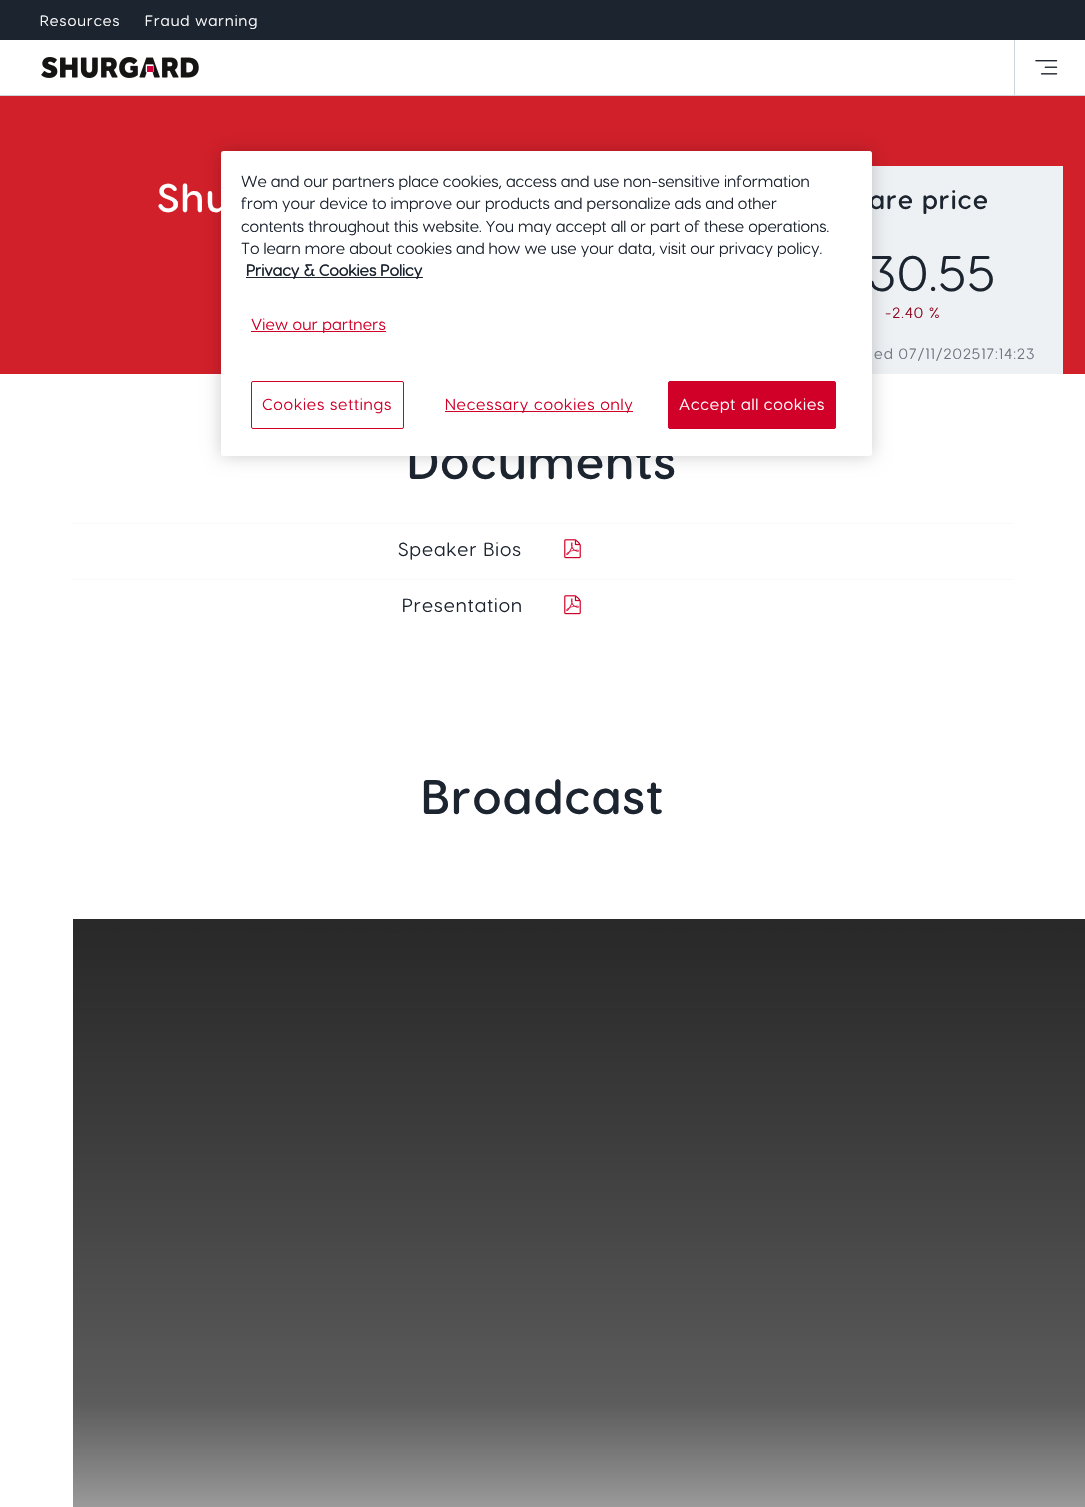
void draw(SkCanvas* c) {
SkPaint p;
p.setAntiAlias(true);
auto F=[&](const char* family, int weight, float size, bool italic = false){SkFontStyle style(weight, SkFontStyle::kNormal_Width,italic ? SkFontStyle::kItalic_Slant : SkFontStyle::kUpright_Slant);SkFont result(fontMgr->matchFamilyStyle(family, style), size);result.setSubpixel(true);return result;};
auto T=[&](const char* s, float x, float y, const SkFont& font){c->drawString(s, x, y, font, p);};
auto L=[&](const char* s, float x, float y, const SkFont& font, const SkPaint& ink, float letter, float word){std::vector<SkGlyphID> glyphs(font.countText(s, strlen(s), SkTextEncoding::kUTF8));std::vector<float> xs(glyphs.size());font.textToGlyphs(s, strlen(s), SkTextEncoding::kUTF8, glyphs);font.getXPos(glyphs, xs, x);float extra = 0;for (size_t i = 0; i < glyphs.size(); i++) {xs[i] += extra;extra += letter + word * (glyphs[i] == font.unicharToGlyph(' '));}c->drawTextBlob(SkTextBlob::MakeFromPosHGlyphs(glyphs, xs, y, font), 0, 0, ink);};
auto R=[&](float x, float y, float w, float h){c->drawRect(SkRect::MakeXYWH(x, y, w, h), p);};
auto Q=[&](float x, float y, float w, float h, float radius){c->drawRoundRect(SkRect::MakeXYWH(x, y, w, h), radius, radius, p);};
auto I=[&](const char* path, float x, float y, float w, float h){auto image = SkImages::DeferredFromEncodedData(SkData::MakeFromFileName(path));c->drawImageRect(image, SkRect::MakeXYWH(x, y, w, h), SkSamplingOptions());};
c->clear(0xffffffff);
p.setColor(0xff1c242f);
R(0,0,1085,40);
auto f1 = F("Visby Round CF",400,15);
p.setColor(0xffffffff);
L("Resources",40,26,f1,p,1,0);
L("Fraud warning",145,26,f1,p,1,0);
p.setColor(0xffced4dc);
R(0,95,1085,1);
I("1.png",41,57,158,21);
R(1014,40,1,55);
I("2.png",1035,60,23,15);
p.setColor(0xffd1202a);
R(0,96,1085,278);
p.setColor(0xffeef1f4);
R(872,166,191,208);
p.setColor(0x33000000);
p.setMaskFilter(SkMaskFilter::MakeBlur(kNormal_SkBlurStyle, 9));
c->drawRoundRect(SkRect::MakeXYWH(221,151,651,305),2.5,2.5,p);
p.setMaskFilter(nullptr);
auto f2 = F("Visby Round CF",600,26);
p.setColor(0xff1c242f);
L("are price",869,209,f2,p,1,0);
auto f3 = F("Visby Round CF",400,50);
L("30.55",868,291,f3,p,1,0);
auto f4 = F("Visby Round CF",600,48.5);
L("Documents",407,479,f4,p,1,0);
p.setColor(0xffffffff);
Q(221,151,651,305,2.5);
auto f5 = F("Visby Round CF",400,16);
p.setColor(0xff1c242f);
T("We and our partners place cookies, access and use non-sensitive information",241,187,f5);
T("from your device to improve our products and personalize ads and other",241,209,f5);
T("contents throughout this website. You may accept all or part of these operations.",241,232,f5);
T("To learn more about cookies and how we use your data, visit our privacy policy.",241,254,f5);
R(246,277,177,1);
auto f6 = F("Visby Round CF",700,16);
T("Privacy & Cookies Policy",246,276,f6);
p.setColor(0xffd10028);
R(251,331,135,1);
L("View our partners",251,330,f5,p,.2,0);
p.setStroke(true);
p.setStrokeWidth(1);
c->drawRoundRect(SkRect::MakeXYWH(251.5,381.5,152,47),1.5,1.5,p);
p.setStroke(false);
L("Cookies settings",262,410,f5,p,.8,0);
R(445,411,188,1);
L("Necessary cookies only",445,410,f5,p,.8,0);
c->drawRoundRect(SkRect::MakeXYWH(668.5,381.5,167,47),1.5,1.5,p);
p.setStroke(true);
c->drawRoundRect(SkRect::MakeXYWH(668.5,381.5,167,47),1.5,1.5,p);
p.setStroke(false);
p.setColor(0xffffffff);
L("Accept all cookies",679,410,f5,p,.8,0);
auto f7 = F("Visby Round CF",600,40);
L("Shu",157,212,f7,p,1,0);
p.setColor(0xff8b021b);
L("-2.40 %",885,318,f1,p,1,0);
p.setColor(0xff6c727f);
L("ed 07/11/202517:14:23",874,359,f1,p,1,0);
p.setColor(0xfff6f8f9);
R(73,523,940,1);
auto f8 = F("Visby Round CF",400,19);
p.setColor(0xff1c242f);
L("Speaker Bios",398,556,f8,p,1,0);
I("3.png",564,539,17,20);
p.setColor(0xfff6f8f9);
R(73,579,940,1);
p.setColor(0xff1c242f);
L("Presentation",402,612,f8,p,1,0);
I("3.png",564,595,17,20);
L("Broadcast",421,814,f4,p,1,0);
I("4.png",73,919,1012,588);
}
